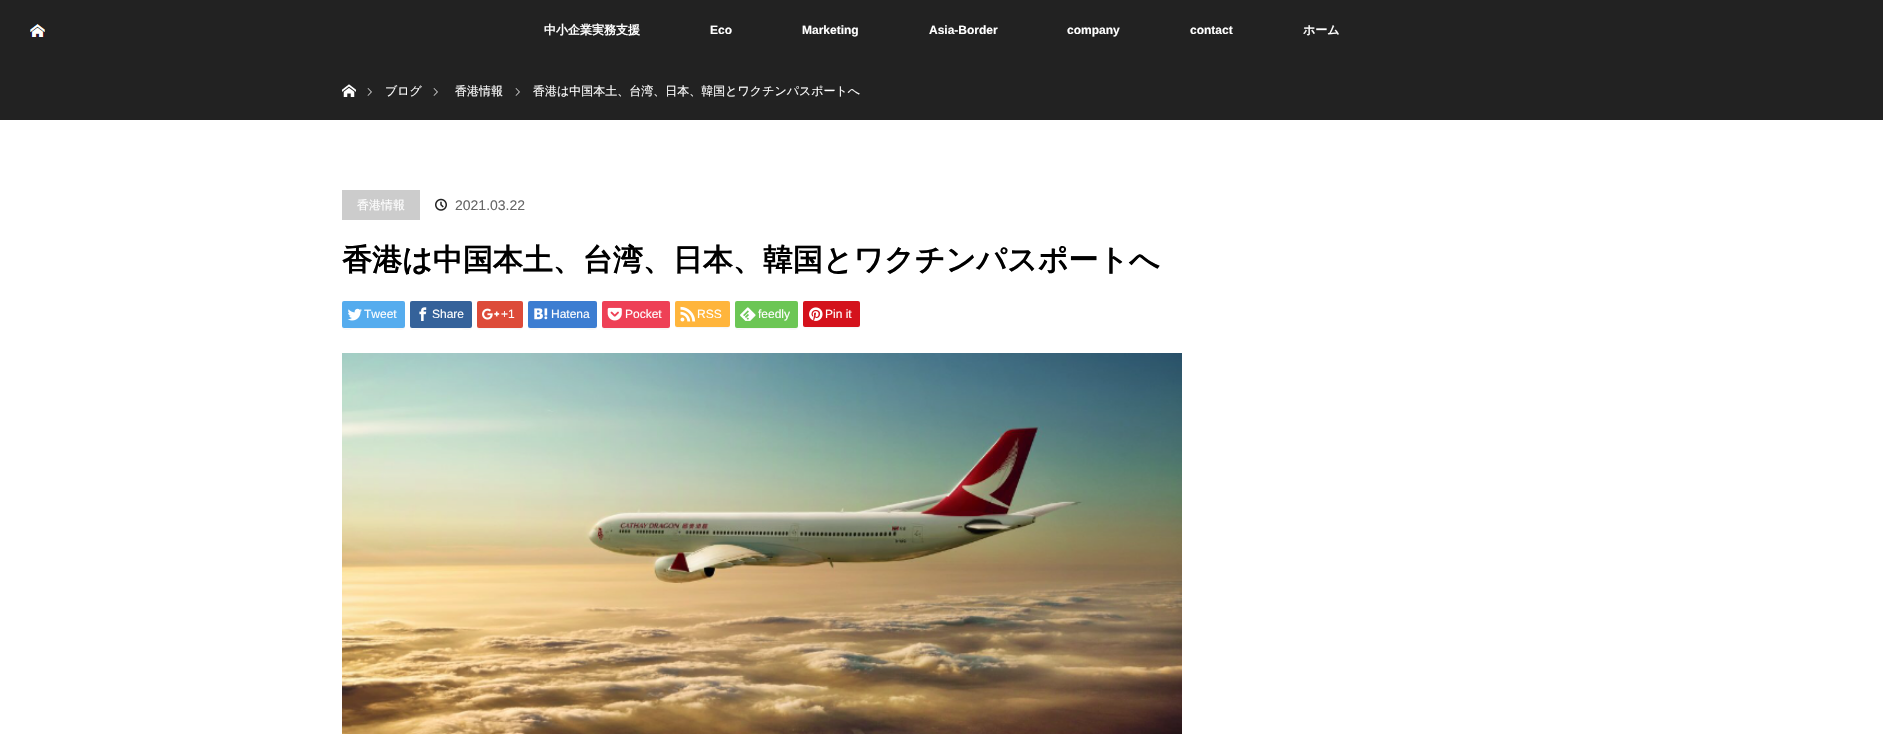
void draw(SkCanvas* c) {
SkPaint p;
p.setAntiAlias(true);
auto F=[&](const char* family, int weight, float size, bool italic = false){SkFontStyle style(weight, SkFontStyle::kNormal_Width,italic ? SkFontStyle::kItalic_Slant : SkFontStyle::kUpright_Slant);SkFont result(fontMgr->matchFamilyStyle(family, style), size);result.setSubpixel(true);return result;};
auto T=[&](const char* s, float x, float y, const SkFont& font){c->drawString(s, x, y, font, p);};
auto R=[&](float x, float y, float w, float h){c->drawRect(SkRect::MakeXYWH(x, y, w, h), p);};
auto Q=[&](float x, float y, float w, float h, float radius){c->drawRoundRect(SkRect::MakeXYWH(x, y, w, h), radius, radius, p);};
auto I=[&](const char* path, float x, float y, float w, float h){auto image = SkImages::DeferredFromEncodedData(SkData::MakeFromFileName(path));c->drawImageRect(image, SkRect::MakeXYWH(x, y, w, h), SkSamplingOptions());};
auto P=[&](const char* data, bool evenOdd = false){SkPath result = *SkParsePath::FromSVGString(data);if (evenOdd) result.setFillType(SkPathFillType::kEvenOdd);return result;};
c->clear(0xffffffff);
p.setColor(0xff222222);
R(0,0,1883,120);
I("1.png",30,24,15,13);
auto f1 = F("WenQuanYi Zen Hei",700,12);
p.setColor(0xffffffff);
T("中小企業実務支援",544,34,f1);
auto f2 = F("Liberation Sans",700,12);
T("Eco",710,34,f2);
T("Marketing",802,34,f2);
T("Asia-Border",929,34,f2);
T("company",1067,34,f2);
T("contact",1190,34,f2);
T("ホーム",1303,34,f1);
I("2.png",342,84,14,13);
I("3.png",367,88,5,8);
auto f3 = F("WenQuanYi Zen Hei",500,12);
T("ブログ",385,95,f3);
I("3.png",433,88,5,8);
T("香港情報",455,95,f3);
I("3.png",515,88,5,8);
T("香港は中国本土、台湾、日本、韓国とワクチンパスポートへ",533,95,f3);
p.setColor(0xffcccccc);
R(342,190,78,30);
p.setColor(0xffffffff);
T("香港情報",357,209,f3);
I("4.png",435,198,12,13);
auto f4 = F("Liberation Sans",400,14);
p.setColor(0xff666666);
T("2021.03.22",455,210,f4);
auto f5 = F("WenQuanYi Zen Hei",700,30);
p.setColor(0xff000000);
T("香港は中国本土、台湾、日本、韓国とワクチンパスポートへ",342,270,f5);
p.setColor(0xfff7f7f7);
c->drawPath(P("M342 326c0 6 8 3 12 3h39c4 0 12 3 12-3l-1 2h-50c-4 0-12 2-12-2z"),p);
p.setColor(0xff55acee);
Q(342,301,63,27,2);
I("5.png",347,308,15,13);
auto f6 = F("Liberation Sans",400,12);
p.setColor(0xffffffff);
T("Tweet",364,318,f6);
p.setColor(0xfff7f7f7);
c->drawPath(P("M410 326c0 6 8 3 12 3h38c4 0 12 3 12-3l-1 2h-49c-4 0-12 2-12-2z"),p);
p.setColor(0xff35629a);
Q(410,301,62,27,2);
I("6.png",419,307,8,14);
p.setColor(0xffffffff);
T("Share",432,318,f6);
p.setColor(0xfff7f7f7);
c->drawPath(P("M477 326c0 5 5 3 9 3h28c4 0 9 2 9-3c0 1-1 2-2 2h-42c-1 0-2-1-2-2z"),p);
p.setColor(0xffdd4b39);
Q(477,301,46,27,2);
I("7.png",482,308,18,12);
p.setColor(0xffffffff);
T("+1",501,318,f6);
p.setColor(0xfff7f7f7);
c->drawPath(P("M528 326c0 6 9 3 13 3h43c4 0 13 3 13-3c0 1-1 2-2 2h-66z"),p);
p.setColor(0xff3c7dd1);
Q(528,301,69,27,2);
I("8.png",534,308,14,12);
p.setColor(0xffffffff);
T("Hatena",551,318,f6);
p.setColor(0xfff7f7f7);
c->drawPath(P("M602 326c0 6 9 3 13 3h42c4 0 13 3 13-3c0 1-1 2-2 2h-65z"),p);
p.setColor(0xffee4056);
Q(602,301,68,27,2);
I("9.png",607,307,15,14);
p.setColor(0xffffffff);
T("Pocket",625,318,f6);
p.setColor(0xfff7f7f7);
c->drawPath(P("M675 325c0 5 7 3 11 3h34c3 0 10 2 10-3l-1 2h-53z"),p);
p.setColor(0xffffb53c);
Q(675,301,55,26,2);
I("10.png",680,306,16,16);
p.setColor(0xffffffff);
T("RSS",697,318,f6);
p.setColor(0xfff7f7f7);
c->drawPath(P("M735 326c0 6 8 3 12 3h39c4 0 12 3 12-3l-1 2h-50c-4 0-12 2-12-2z"),p);
p.setColor(0xff6cc655);
Q(735,301,63,27,2);
I("11.png",740,307,16,14);
p.setColor(0xffffffff);
T("feedly",758,318,f6);
p.setColor(0xfff7f7f7);
c->drawPath(P("M803 325c0 5 7 3 11 3h35c4 0 11 2 11-3l-1 2h-45c-4 0-11 2-11-2z"),p);
p.setColor(0xffd4121c);
Q(803,301,57,26,2);
I("12.png",809,307,14,14);
p.setColor(0xffffffff);
T("Pin it",825,318,f6);
I("13.png",342,353,840,381);
}
